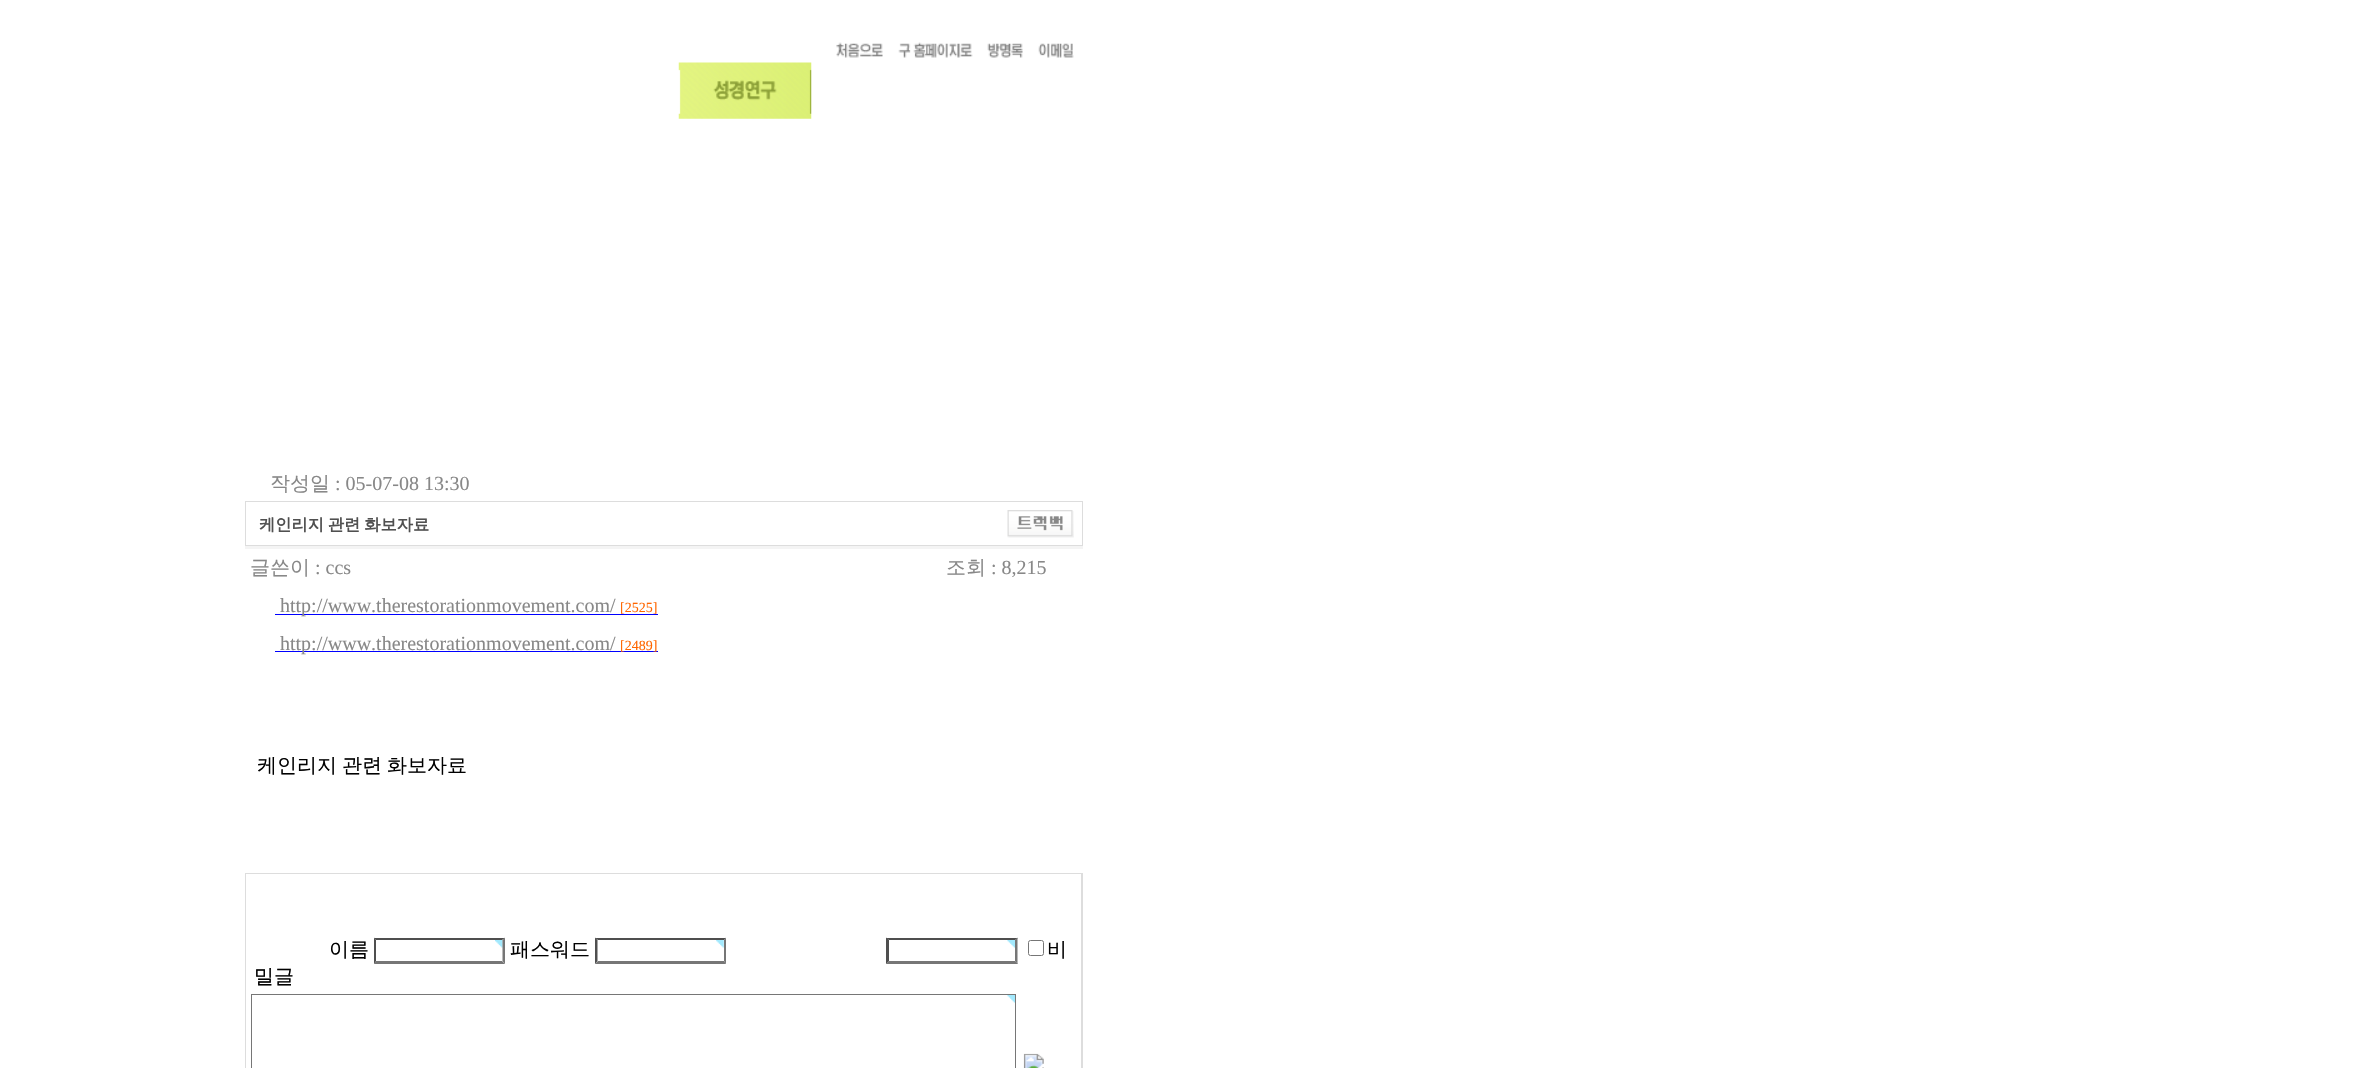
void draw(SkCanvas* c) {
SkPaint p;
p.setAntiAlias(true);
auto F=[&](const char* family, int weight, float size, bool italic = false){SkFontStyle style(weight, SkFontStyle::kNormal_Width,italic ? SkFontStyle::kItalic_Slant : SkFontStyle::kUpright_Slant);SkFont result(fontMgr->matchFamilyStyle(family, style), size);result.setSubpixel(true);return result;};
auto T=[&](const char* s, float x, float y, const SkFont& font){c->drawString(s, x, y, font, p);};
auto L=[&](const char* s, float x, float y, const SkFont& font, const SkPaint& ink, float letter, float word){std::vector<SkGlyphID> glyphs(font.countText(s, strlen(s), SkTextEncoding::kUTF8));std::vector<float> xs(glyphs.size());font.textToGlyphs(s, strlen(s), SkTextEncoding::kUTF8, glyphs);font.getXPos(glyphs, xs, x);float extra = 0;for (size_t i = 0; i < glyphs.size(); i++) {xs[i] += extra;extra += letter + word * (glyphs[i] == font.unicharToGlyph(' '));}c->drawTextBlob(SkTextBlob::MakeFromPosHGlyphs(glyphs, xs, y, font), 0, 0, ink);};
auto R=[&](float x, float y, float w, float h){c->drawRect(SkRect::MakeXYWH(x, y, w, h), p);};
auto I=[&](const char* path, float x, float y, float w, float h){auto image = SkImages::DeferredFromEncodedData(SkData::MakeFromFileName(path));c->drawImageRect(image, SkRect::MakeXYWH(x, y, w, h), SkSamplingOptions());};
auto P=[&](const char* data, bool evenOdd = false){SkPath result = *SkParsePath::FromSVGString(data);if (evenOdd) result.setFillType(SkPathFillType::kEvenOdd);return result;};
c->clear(0xffffffff);
I("1.png",836,42,238,16);
I("2.png",678,62,134,57);
auto f1 = F("WenQuanYi Zen Hei",500,20);
p.setColor(0xff888888);
T("작성일",270,490,f1);
auto f2 = F("Liberation Serif",400,20);
T(": 05-07-08 13:30",335,490,f2);
p.setStroke(true);
p.setStrokeWidth(1);
p.setColor(0xffdddddd);
c->drawRect(SkRect::MakeXYWH(245.5,501.5,837,44),p);
auto f3 = F("WenQuanYi Zen Hei",700,16.25);
p.setStroke(false);
p.setColor(0xff505050);
L("케인리지 관련 화보자료",259,530,f3,p,0,-1);
I("3.png",1007,510,67,28);
p.setColor(0xfff4f4f4);
R(245,546,838,3);
p.setColor(0xff888888);
T("글쓴이",250,574,f1);
T(": ccs",315,574,f2);
T("조회",946,574,f1);
T(": 8,215",991,574,f2);
p.setColor(0xff0000ff);
R(275,614,340,1);
p.setColor(0xff888888);
T("http://www.therestorationmovement.com/",280,612,f2);
auto f4 = F("Liberation Serif",400,14);
p.setColor(0xffff6600);
T("[2525]",620,612,f4);
p.setColor(0xff0000ff);
R(615,614,43,1);
R(275,651,340,1);
p.setColor(0xff888888);
T("http://www.therestorationmovement.com/",280,650,f2);
p.setColor(0xff0000ff);
R(615,651,43,1);
p.setColor(0xffff6600);
T("[2489]",620,650,f4);
p.setColor(0xff000000);
L("케인리지 관련 화보자료",257,772,f1,p,0,-1);
p.setColor(0xffdddddd);
R(245,873,838,195);
p.setColor(0xffffffff);
R(246,874,835,194);
p.setColor(0xff000000);
T("이름",329,956,f1);
I("4.png",495,940,8,8);
p.setColor(0xff4f4f4f);
c->drawPath(P("M374 938h131l-3 2h-126z"),p);
p.setColor(0xff767676);
c->drawPath(P("M505 937.5v26.5l-2.5-3v-21z"),p);
c->drawPath(P("M505 964h-131l2-3h126z"),p);
p.setColor(0xff4f4f4f);
c->drawPath(P("M374 964v-26.5l2 2.5v21z"),p);
p.setColor(0xff000000);
T("패스워드",510,956,f1);
I("5.png",716,940,8,8);
p.setColor(0xff4f4f4f);
c->drawPath(P("M595 938h131l-2 2h-126z"),p);
p.setColor(0xff767676);
c->drawPath(P("M726 937.5v26.5l-2-3v-21z"),p);
c->drawPath(P("M726 964h-131l3-3h126z"),p);
p.setColor(0xff4f4f4f);
c->drawPath(P("M595 964v-26.5l2.5 2.5v21z"),p);
I("6.png",1007,940,8,8);
c->drawPath(P("M886 938h132l-3 2h-126z"),p);
p.setColor(0xff767676);
c->drawPath(P("M1017.5 937.5v26.5l-2.5-3v-21z"),p);
c->drawPath(P("M1018 964h-132l3-3h126z"),p);
p.setColor(0xff4f4f4f);
c->drawPath(P("M886 964v-26.5l3 2.5v21z"),p);
p.setStroke(true);
p.setColor(0xff767676);
c->drawRoundRect(SkRect::MakeXYWH(1028.5,940.5,15,15),2,2,p);
p.setStroke(false);
p.setColor(0xff000000);
T("비",1047,956,f1);
T("밀글",254,983,f1);
I("6.png",1007,995,8,8);
p.setStroke(true);
p.setColor(0xff767676);
c->drawRect(SkRect::MakeXYWH(251.5,994.5,764,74),p);
I("7.png",1023,1053,21,15);
}
